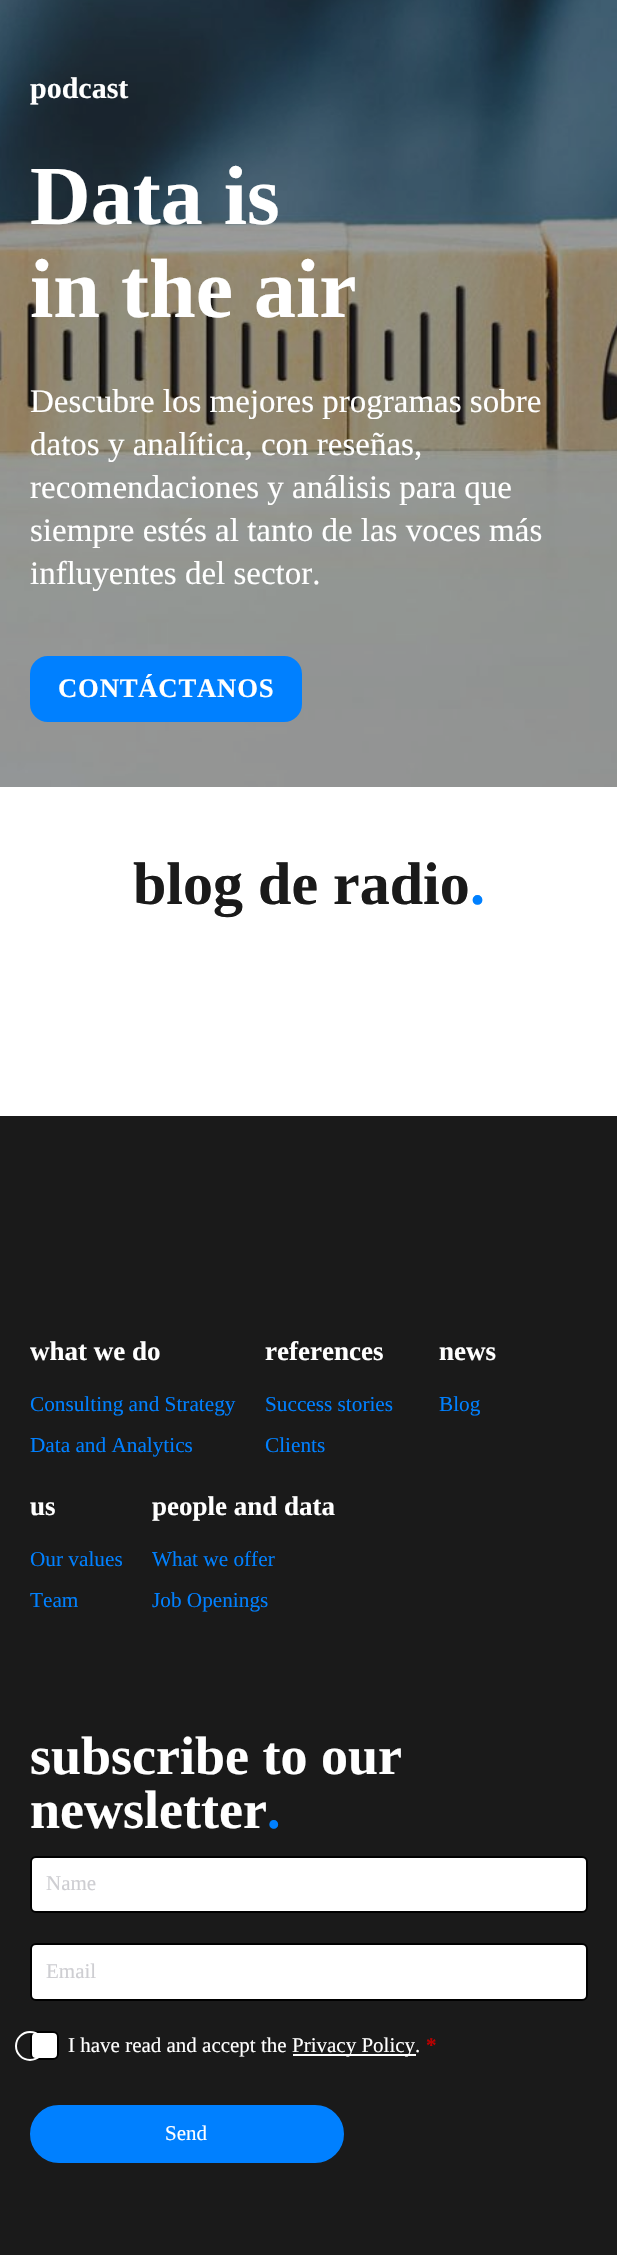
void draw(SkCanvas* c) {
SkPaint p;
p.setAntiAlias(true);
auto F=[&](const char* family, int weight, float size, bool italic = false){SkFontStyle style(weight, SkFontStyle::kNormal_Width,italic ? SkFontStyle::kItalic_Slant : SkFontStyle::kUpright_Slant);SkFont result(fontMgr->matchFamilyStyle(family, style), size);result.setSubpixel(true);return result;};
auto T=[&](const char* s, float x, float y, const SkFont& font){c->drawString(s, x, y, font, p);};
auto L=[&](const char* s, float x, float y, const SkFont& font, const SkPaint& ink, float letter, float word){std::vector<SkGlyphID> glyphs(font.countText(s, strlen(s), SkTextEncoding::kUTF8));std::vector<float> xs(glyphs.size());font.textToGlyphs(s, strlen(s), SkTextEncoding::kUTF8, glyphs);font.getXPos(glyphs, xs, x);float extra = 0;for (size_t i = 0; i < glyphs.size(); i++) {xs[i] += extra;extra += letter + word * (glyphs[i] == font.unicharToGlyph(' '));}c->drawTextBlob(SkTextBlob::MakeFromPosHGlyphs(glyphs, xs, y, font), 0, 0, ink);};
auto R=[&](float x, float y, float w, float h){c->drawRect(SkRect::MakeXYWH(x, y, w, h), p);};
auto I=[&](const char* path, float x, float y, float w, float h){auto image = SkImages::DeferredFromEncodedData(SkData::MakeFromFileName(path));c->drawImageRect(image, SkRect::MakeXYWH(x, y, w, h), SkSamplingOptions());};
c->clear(0xffffffff);
I("1.png",0,0,617,787);
auto f1 = F("Liberation Serif",700,30);
p.setColor(0xffffffff);
T("podcast",30,98,f1);
auto f2 = F("Liberation Serif",700,84);
T("Data is",30,224,f2);
T("in the air",30,317,f2);
auto f3 = F("Liberation Serif",400,33);
T("Descubre los mejores programas sobre",30,412,f3);
T("datos y analítica, con reseñas,",30,455,f3);
T("recomendaciones y análisis para que",30,498,f3);
T("siempre estés al tanto de las voces más",30,541,f3);
T("influyentes del sector.",30,584,f3);
p.setColor(0xff0080ff);
c->drawRoundRect(SkRect::MakeXYWH(31,657,270,64),17,17,p);
p.setStroke(true);
p.setStrokeWidth(2);
c->drawRoundRect(SkRect::MakeXYWH(31,657,270,64),17,17,p);
auto f4 = F("Liberation Serif",700,26.75);
p.setStroke(false);
p.setColor(0xffffffff);
L("CONTÁCTANOS",58,697,f4,p,.75,0);
auto f5 = F("Liberation Serif",700,60);
p.setColor(0xff1a1a1a);
T("blog de radio",133,904,f5);
p.setColor(0xff0080ff);
T(".",470,904,f5);
p.setColor(0xff1a1a1a);
R(0,1116,617,1139);
auto f6 = F("Liberation Serif",700,27);
p.setColor(0xffffffff);
T("what we do",30,1360,f6);
auto f7 = F("Liberation Serif",400,21.25);
p.setColor(0xff0080ff);
T("Consulting and Strategy",30,1411,f7);
T("Data and Analytics",30,1452,f7);
p.setColor(0xffffffff);
T("references",265,1360,f6);
p.setColor(0xff0080ff);
T("Success stories",265,1411,f7);
T("Clients",265,1452,f7);
p.setColor(0xffffffff);
T("news",439,1360,f6);
p.setColor(0xff0080ff);
T("Blog",439,1411,f7);
p.setColor(0xffffffff);
T("us",30,1515,f6);
p.setColor(0xff0080ff);
T("Our values",30,1566,f7);
T("Team",30,1607,f7);
p.setColor(0xffffffff);
T("people and data",152,1515,f6);
p.setColor(0xff0080ff);
T("What we offer",152,1566,f7);
T("Job Openings",152,1607,f7);
auto f8 = F("Liberation Serif",700,54);
p.setColor(0xffffffff);
T("subscribe to our",30,1774,f8);
T("newsletter",30,1828,f8);
p.setColor(0xff0080ff);
T(".",267,1828,f8);
p.setColor(0xffffffff);
c->drawRoundRect(SkRect::MakeXYWH(31,1857,556,55),5,5,p);
p.setStroke(true);
p.setColor(0xff000000);
c->drawRoundRect(SkRect::MakeXYWH(31,1857,556,55),5,5,p);
auto f9 = F("Liberation Serif",400,21);
p.setStroke(false);
p.setColor(0xffceced2);
T("Name",46,1890,f9);
p.setColor(0xffffffff);
c->drawRoundRect(SkRect::MakeXYWH(31,1944,556,56),5,5,p);
p.setStroke(true);
p.setColor(0xff000000);
c->drawRoundRect(SkRect::MakeXYWH(31,1944,556,56),5,5,p);
p.setStroke(false);
p.setColor(0xffceced2);
T("Email",46,1978,f9);
p.setColor(0xffffffff);
c->drawRoundRect(SkRect::MakeXYWH(31,2032,27,27),5,5,p);
p.setStroke(true);
p.setColor(0xff000000);
c->drawRoundRect(SkRect::MakeXYWH(31,2032,27,27),5,5,p);
p.setColor(0xffffffff);
c->drawCircle(30,2046,14,p);
p.setStroke(false);
T("I have read and accept the",68,2052,f9);
R(293,2054,123,2);
T("Privacy Policy.",292,2052,f9);
auto f10 = F("Liberation Serif",700,21);
p.setColor(0xffbb0000);
T("*",426,2052,f10);
p.setColor(0xff0080ff);
c->drawRoundRect(SkRect::MakeXYWH(31,2106,312,56),28,28,p);
p.setStroke(true);
c->drawRoundRect(SkRect::MakeXYWH(31,2106,312,56),28,28,p);
p.setStroke(false);
p.setColor(0xffffffff);
T("Send",165,2140,f9);
}
